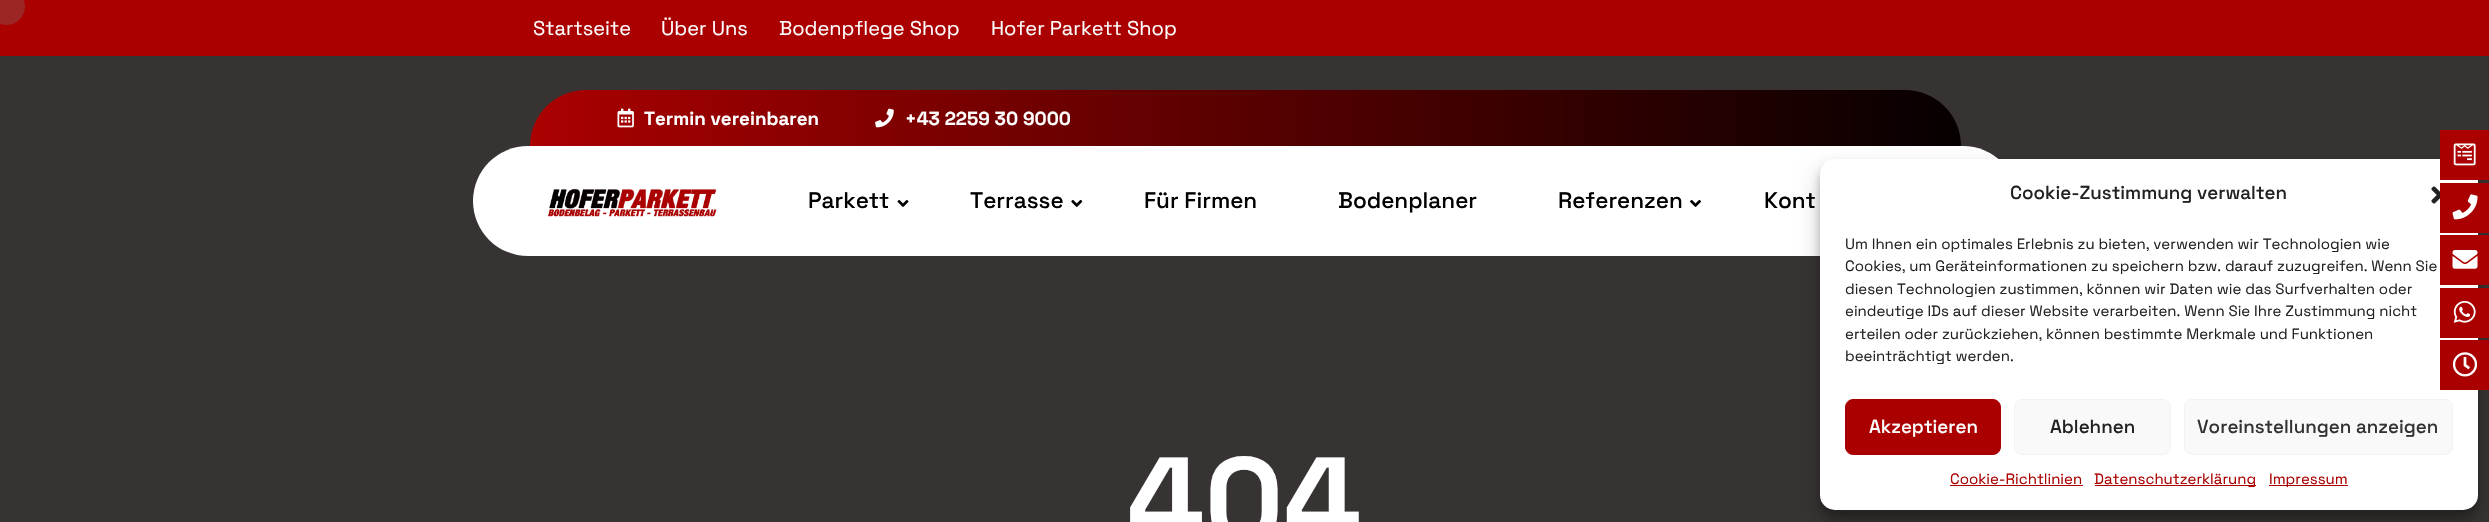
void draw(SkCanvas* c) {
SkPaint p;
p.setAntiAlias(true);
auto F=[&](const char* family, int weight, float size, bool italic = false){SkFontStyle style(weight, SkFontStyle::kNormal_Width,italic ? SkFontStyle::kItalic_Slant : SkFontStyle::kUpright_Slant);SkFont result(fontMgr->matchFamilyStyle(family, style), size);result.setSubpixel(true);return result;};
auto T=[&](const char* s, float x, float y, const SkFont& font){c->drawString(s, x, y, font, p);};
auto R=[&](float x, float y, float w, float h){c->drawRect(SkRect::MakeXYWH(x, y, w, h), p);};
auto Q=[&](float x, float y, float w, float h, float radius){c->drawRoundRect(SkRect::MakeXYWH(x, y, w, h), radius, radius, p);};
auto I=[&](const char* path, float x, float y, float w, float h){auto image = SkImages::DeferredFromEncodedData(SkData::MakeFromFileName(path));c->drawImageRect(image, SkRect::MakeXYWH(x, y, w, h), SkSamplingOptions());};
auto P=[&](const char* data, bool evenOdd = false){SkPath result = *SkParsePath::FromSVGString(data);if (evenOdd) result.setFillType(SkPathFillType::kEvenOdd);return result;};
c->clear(0xffaa0000);
p.setColor(0xff9c2525);
c->drawCircle(6.5,6.5,18.5,p);
auto f1 = F("Space Grotesk",300,20);
p.setColor(0xffffffff);
T("Startseite",533,35,f1);
T("Über Uns",661,35,f1);
T("Bodenpflege Shop",779,35,f1);
T("Hofer Parkett Shop",991,35,f1);
p.setColor(0xff383333);
R(0,56,2489,466);
{
const SkColor colors[] = {0xffaa0000,0xff060000};
const float stops[] = {0,1};
const SkPoint ends[] = {{530,118}, {1961,118}};
p.setShader(SkGradientShader::MakeLinear(ends, colors, stops, 2, SkTileMode::kClamp));
p.setAlpha(255);
}
c->drawPath(P("M586 90h1319c31 0 56 25 56 56h-1431c0-31 25-56 56-56z"),p);
I("1.png",617,108,17,20);
auto f2 = F("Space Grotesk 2",300,18.75);
p.setShader(nullptr);
p.setColor(0xffffffff);
T("Termin vereinbaren",644,125,f2);
I("2.png",875,108,19,20);
T("+43 2259 30 9000",905,125,f2);
Q(473,146,1545,110,55);
I("3.png",547,188,170,29);
auto f3 = F("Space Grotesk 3",300,22.5);
p.setColor(0xff000000);
T("Parkett",808,208,f3);
I("4.png",897,200,12,7);
T("Terrasse",970,208,f3);
I("5.png",1071,200,12,7);
T("Für Firmen",1144,208,f3);
T("Bodenplaner",1338,208,f3);
T("Referenzen",1558,208,f3);
I("6.png",1690,200,11,7);
T("Kont",1764,208,f3);
auto f4 = F("Space Grotesk 2",300,122);
p.setColor(0xffffffff);
T("404",1127,543,f4);
p.setColor(0x3b000000);
p.setMaskFilter(SkMaskFilter::MakeBlur(kNormal_SkBlurStyle, 4));
c->drawRoundRect(SkRect::MakeXYWH(1820,166,658,352),15,15,p);
p.setMaskFilter(nullptr);
p.setColor(0x30000000);
p.setMaskFilter(SkMaskFilter::MakeBlur(kNormal_SkBlurStyle, 12.5));
c->drawRoundRect(SkRect::MakeXYWH(1820,171,658,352),15,15,p);
p.setMaskFilter(nullptr);
p.setColor(0xffffffff);
Q(1820,159,658,351,15);
auto f5 = F("Space Grotesk 3",300,18.75);
p.setColor(0xff222222);
T("Cookie-Zustimmung verwalten",2010,199,f5);
I("7.png",2431,186,9,18);
auto f6 = F("Space Grotesk",300,15);
T("Um Ihnen ein optimales Erlebnis zu bieten, verwenden wir Technologien wie",1845,249,f6);
T("Cookies, um Geräteinformationen zu speichern bzw. darauf zuzugreifen. Wenn Sie",1845,271,f6);
T("diesen Technologien zustimmen, können wir Daten wie das Surfverhalten oder",1845,294,f6);
T("eindeutige IDs auf dieser Website verarbeiten. Wenn Sie Ihre Zustimmung nicht",1845,316,f6);
T("erteilen oder zurückziehen, können bestimmte Merkmale und Funktionen",1845,339,f6);
T("beeinträchtigt werden.",1845,361,f6);
p.setColor(0xffaa0000);
c->drawRoundRect(SkRect::MakeXYWH(1845.5,399.5,155,55),7.5,7.5,p);
p.setStroke(true);
p.setStrokeWidth(1);
c->drawRoundRect(SkRect::MakeXYWH(1845.5,399.5,155,55),7.5,7.5,p);
p.setStroke(false);
p.setColor(0xffffffff);
T("Akzeptieren",1869,433,f5);
p.setColor(0xfff9f9f9);
c->drawRoundRect(SkRect::MakeXYWH(2014.5,399.5,156,55),7.5,7.5,p);
p.setStroke(true);
p.setColor(0xfff2f2f2);
c->drawRoundRect(SkRect::MakeXYWH(2014.5,399.5,156,55),7.5,7.5,p);
p.setStroke(false);
p.setColor(0xff222222);
T("Ablehnen",2050,433,f5);
p.setColor(0xfff9f9f9);
c->drawRoundRect(SkRect::MakeXYWH(2184.5,399.5,268,55),7.5,7.5,p);
p.setStroke(true);
p.setColor(0xfff2f2f2);
c->drawRoundRect(SkRect::MakeXYWH(2184.5,399.5,268,55),7.5,7.5,p);
p.setStroke(false);
p.setColor(0xff333333);
T("Voreinstellungen anzeigen",2197,433,f5);
p.setColor(0xffaa0000);
T("Cookie-Richtlinien",1950,484,f6);
R(1950,485,133,1);
R(2095,485,161,1);
T("Datenschutzerklärung",2094,484,f6);
R(2269,485,79,1);
T("Impressum",2269,484,f6);
R(2440,130,49,50);
I("8.png",2453,143,23,23);
R(2440,183,49,50);
I("9.png",2452,194,26,26);
R(2440,235,49,50);
I("10.png",2452,250,26,19);
R(2440,288,49,50);
I("11.png",2453,300,23,23);
R(2440,340,49,50);
I("12.png",2452,352,26,25);
}
